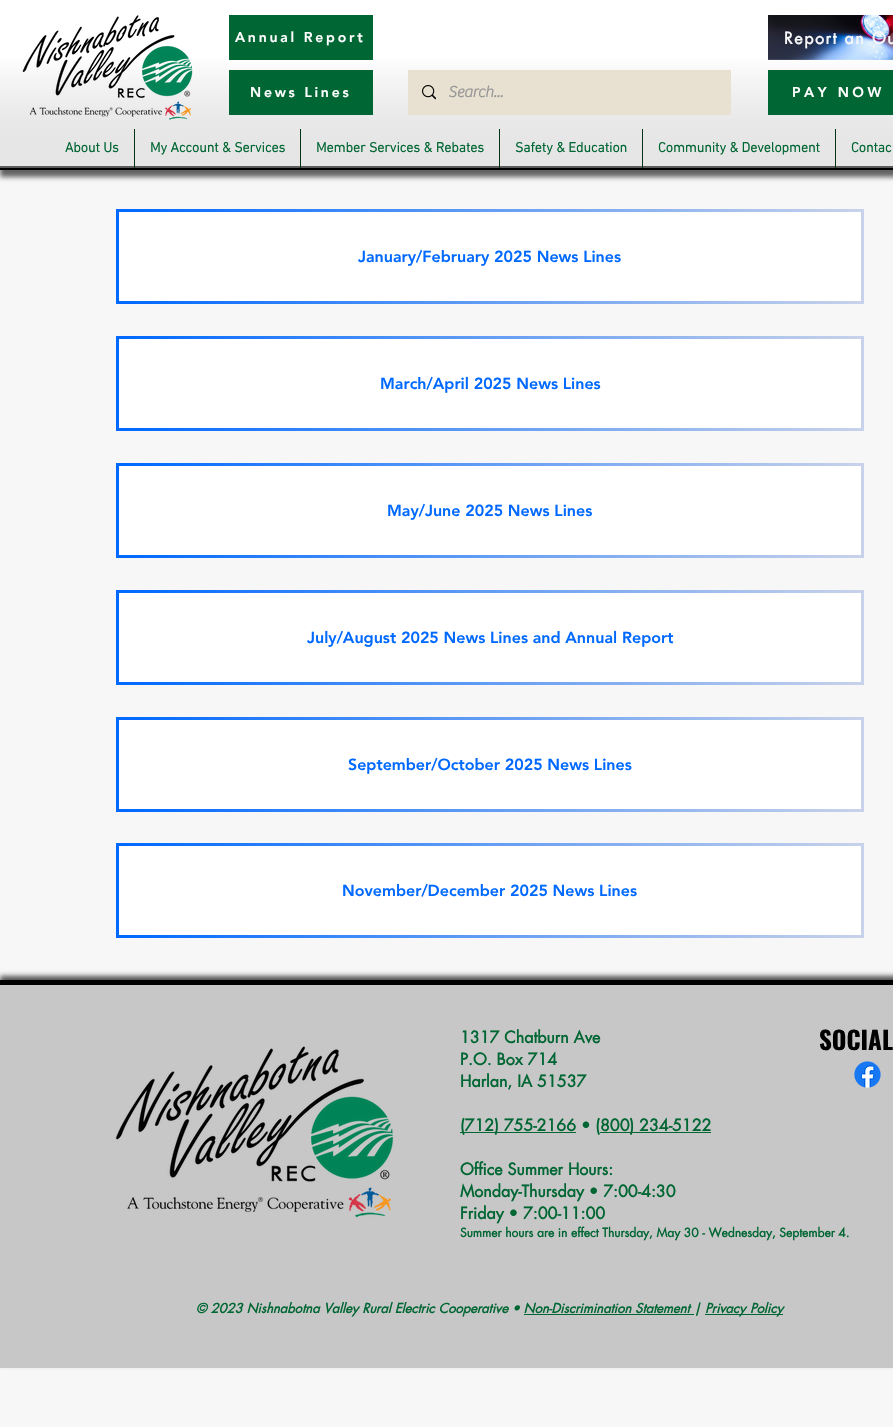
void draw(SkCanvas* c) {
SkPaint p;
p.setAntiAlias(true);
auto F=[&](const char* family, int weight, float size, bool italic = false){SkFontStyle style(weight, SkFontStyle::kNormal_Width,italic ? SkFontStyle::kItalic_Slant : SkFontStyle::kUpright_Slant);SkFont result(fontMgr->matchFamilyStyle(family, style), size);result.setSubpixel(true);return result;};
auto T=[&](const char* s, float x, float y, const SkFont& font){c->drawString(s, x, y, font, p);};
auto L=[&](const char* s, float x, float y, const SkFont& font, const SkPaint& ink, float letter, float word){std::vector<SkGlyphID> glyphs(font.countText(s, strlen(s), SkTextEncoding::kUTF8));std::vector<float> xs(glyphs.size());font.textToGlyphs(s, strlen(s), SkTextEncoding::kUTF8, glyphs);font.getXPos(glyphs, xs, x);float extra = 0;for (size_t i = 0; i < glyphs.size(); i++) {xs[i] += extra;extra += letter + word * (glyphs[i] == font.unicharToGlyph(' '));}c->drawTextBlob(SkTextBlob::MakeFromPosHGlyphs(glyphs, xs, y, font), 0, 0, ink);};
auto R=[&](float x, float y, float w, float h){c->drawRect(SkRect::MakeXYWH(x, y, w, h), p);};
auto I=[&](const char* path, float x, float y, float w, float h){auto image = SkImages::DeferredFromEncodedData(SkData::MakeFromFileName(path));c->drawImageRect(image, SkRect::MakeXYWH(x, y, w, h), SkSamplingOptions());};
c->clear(0xfff7f7f7);
p.setColor(0x99000000);
p.setMaskFilter(SkMaskFilter::MakeBlur(kNormal_SkBlurStyle, 2.5));
c->drawRect(SkRect::MakeXYWH(0,7,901,170),p);
p.setMaskFilter(nullptr);
p.setColor(0xffffffff);
R(0,58,893,108);
p.setColor(0xff000000);
R(0,166,893,4);
{
const SkColor colors[] = {0x73c7c7c7,0xffffffff};
const float stops[] = {0,.66};
const SkPoint ends[] = {{490,168}, {490,0}};
p.setShader(SkGradientShader::MakeLinear(ends, colors, stops, 2, SkTileMode::kClamp));
p.setAlpha(255);
}
R(0,0,893,168);
I("1.png",22,15,171,105);
p.setShader(nullptr);
p.setColor(0xff006633);
R(229,15,144,45);
auto f1 = F("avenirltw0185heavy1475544",900,14);
p.setColor(0xffffffff);
L("Annual Report",235,42,f1,p,2.75,0);
I("2.png",768,15,125,45);
auto f2 = F("futura",700,16);
p.setColor(0xfff7f7f7);
L("Report an Ou",784,44,f2,p,1.6,0);
p.setColor(0xff006633);
R(229,70,144,45);
p.setColor(0xffffffff);
L("News Lines",250,97,f1,p,2.75,0);
p.setColor(0xffe8e1d1);
R(408,70,323,45);
I("3.png",422,85,14,15);
auto f3 = F("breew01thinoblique",700,16);
p.setColor(0xff999999);
T("Search...",448,97,f3);
p.setColor(0xff006633);
R(768,70,125,45);
p.setColor(0xffffffff);
L("PAY NOW",792,97,f1,p,3.5,0);
auto f4 = F("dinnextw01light",700,14);
p.setColor(0xff006633);
T("About Us",65,152,f4);
p.setColor(0xff00331a);
R(134,129,1,39);
p.setColor(0xff006633);
T("My Account & Services",150,152,f4);
p.setColor(0xff00331a);
R(300,129,1,39);
p.setColor(0xff006633);
T("Member Services & Rebates",316,152,f4);
p.setColor(0xff00331a);
R(499,129,1,39);
p.setColor(0xff006633);
T("Safety & Education",515,152,f4);
p.setColor(0xff00331a);
R(642,129,1,39);
p.setColor(0xff006633);
T("Community & Development",658,152,f4);
p.setColor(0xff00331a);
R(835,129,1,39);
p.setColor(0xff006633);
T("Contac",851,152,f4);
p.setColor(0xffffffff);
R(119,212,742,89);
I("4.png",116,209,748,95);
auto f5 = F("avenirltw0185heavy1475544",900,16);
p.setColor(0xff0069ff);
T("January/February 2025 News Lines",358,262,f5);
p.setColor(0xffffffff);
R(119,339,742,89);
I("5.png",116,336,748,95);
p.setColor(0xff0069ff);
T("March/April 2025 News Lines",380,389,f5);
p.setColor(0xffffffff);
R(119,466,742,89);
I("4.png",116,463,748,95);
p.setColor(0xff0069ff);
T("May/June 2025 News Lines",387,516,f5);
p.setColor(0xffffffff);
R(119,593,742,89);
I("5.png",116,590,748,95);
p.setColor(0xff0069ff);
T("July/August 2025 News Lines and Annual Report",307,643,f5);
p.setColor(0xffffffff);
R(119,720,742,89);
I("4.png",116,717,748,95);
p.setColor(0xff0069ff);
T("September/October 2025 News Lines",348,770,f5);
p.setColor(0xffffffff);
R(119,846,742,89);
I("6.png",116,843,748,95);
p.setColor(0xff0069ff);
T("November/December 2025 News Lines",342,896,f5);
p.setColor(0xab000000);
p.setMaskFilter(SkMaskFilter::MakeBlur(kNormal_SkBlurStyle, 2.5));
c->drawRect(SkRect::MakeXYWH(0,976,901,388),p);
p.setMaskFilter(nullptr);
p.setColor(0xffc7c7c7);
R(0,985,893,383);
p.setColor(0xff000000);
R(0,980,893,5);
p.setColor(0xff006633);
T("1317 Chatburn Ave",460,1043,f2);
T("P.O. Box 714",460,1065,f2);
T("Harlan, IA 51537",460,1087,f2);
R(460,1132,116,1);
T("(712) 755-2166 • (",460,1131,f2);
R(600,1132,111,1);
T("800) 234-5122",600,1131,f2);
T("Office Summer Hours:",460,1175,f2);
T("Monday-Thursday • 7:00-4:30",460,1197,f2);
T("Friday • 7:00-11:00",460,1219,f2);
auto f6 = F("futura",700,12);
T("Summer hours are in effect Thursday, May 30 - Wednesday, September 4.",460,1237,f6);
auto f7 = F("Oswald",700,25);
p.setColor(0xff000000);
T("SOCIAL",819,1050,f7);
I("7.png",115,1046,279,172);
I("8.png",854,1061,27,27);
auto f8 = F("futura",700,13,true);
p.setColor(0xff006633);
T("© 2023 Nishnabotna Valley Rural Electric Cooperative • Non-Discrimination Statement |",196,1313,f8);
R(524,1314,170,1);
R(705,1314,41,1);
T("Privacy",705,1313,f8);
R(746,1314,37,1);
T("Policy",750,1313,f8);
}
